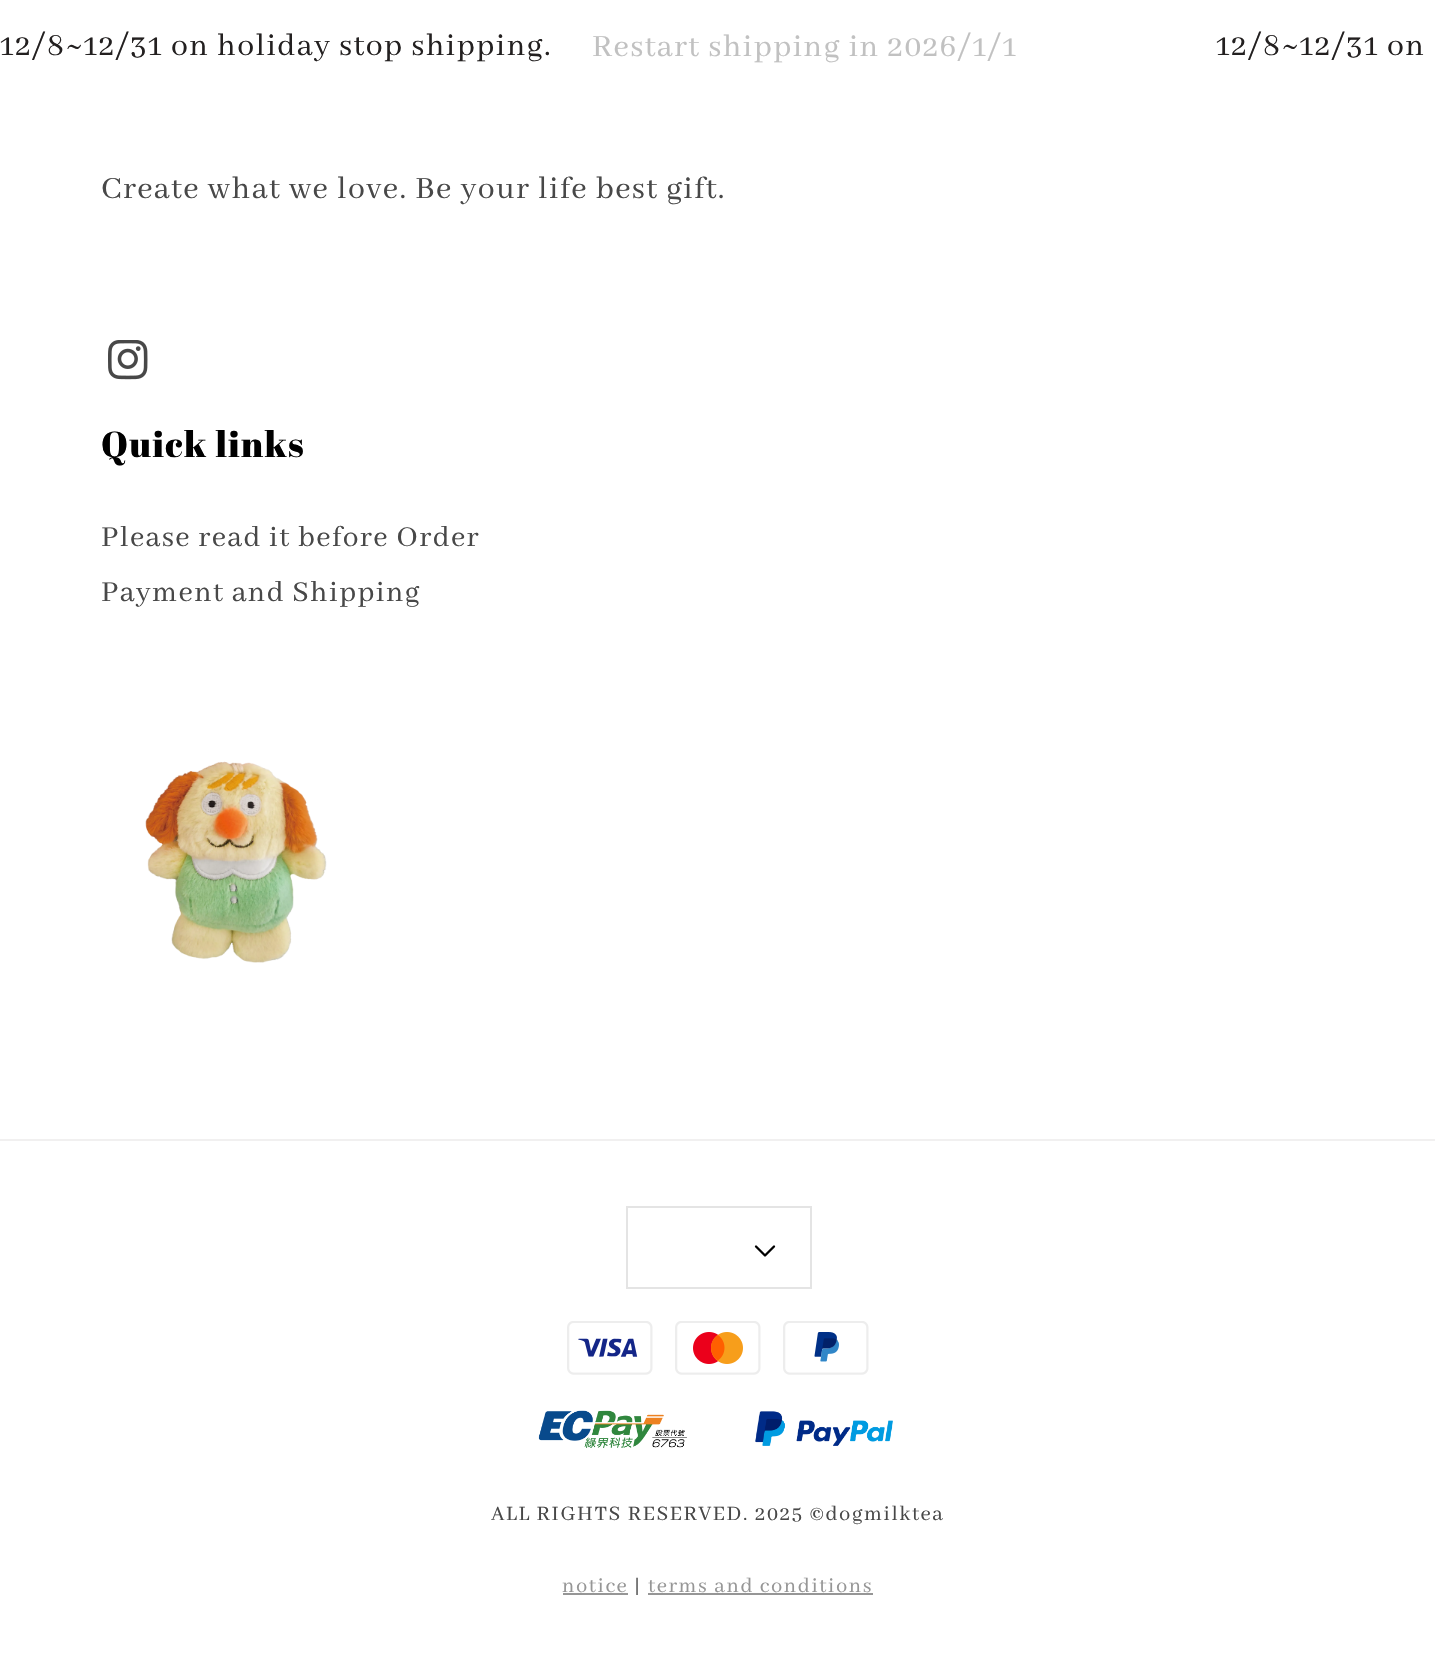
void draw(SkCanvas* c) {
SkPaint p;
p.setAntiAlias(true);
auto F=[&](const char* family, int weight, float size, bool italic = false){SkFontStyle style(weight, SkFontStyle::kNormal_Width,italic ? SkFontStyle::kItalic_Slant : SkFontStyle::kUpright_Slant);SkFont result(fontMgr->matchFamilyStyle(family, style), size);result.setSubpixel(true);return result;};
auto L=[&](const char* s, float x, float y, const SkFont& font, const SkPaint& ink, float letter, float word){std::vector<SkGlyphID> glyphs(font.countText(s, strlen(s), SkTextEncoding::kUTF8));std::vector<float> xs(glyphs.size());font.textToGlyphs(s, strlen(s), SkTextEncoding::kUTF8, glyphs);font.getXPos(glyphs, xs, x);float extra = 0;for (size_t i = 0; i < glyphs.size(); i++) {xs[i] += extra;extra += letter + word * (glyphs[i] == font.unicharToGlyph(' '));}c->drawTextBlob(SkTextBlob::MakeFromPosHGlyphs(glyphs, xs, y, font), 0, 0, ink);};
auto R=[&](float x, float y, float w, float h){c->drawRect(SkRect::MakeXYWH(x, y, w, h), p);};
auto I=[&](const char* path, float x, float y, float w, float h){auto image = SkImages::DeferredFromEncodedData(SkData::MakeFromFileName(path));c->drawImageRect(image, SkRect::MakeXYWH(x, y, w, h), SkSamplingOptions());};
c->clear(0xffffffff);
auto f1 = F("Abhaya Libre",400,33.75);
p.setColor(0xff232020);
L("12/8~12/31 on holiday stop shipping.",0,55,f1,p,1.35,0);
p.setColor(0xffc1c1c1);
L("Restart shipping in 2026/1/1",592,56,f1,p,1.35,0);
p.setColor(0xff232020);
L("12/8~12/31 on",1216,55,f1,p,1.35,0);
p.setColor(0xff484848);
L("Create what we love. Be your life best gift.",101,198,f1,p,1.35,0);
I("1.png",108,340,40,40);
auto f2 = F("Abril Fatface",400,36);
p.setColor(0xff000000);
L("Quick links",101,457,f2,p,1.35,0);
auto f3 = F("Abhaya Libre",400,31.5);
p.setColor(0xff484848);
L("Please read it before Order",101,546,f3,p,1.35,0);
L("Payment and Shipping",101,601,f3,p,1.35,0);
I("2.png",145,761,182,202);
p.setColor(0xfff1f0f0);
R(0,1139,1435,2);
p.setStroke(true);
p.setStrokeWidth(2);
p.setColor(0xffe4e4e4);
c->drawRect(SkRect::MakeXYWH(627,1207,184,81),p);
I("3.png",754,1245,22,12);
I("4.png",567,1321,86,54);
I("5.png",675,1321,86,54);
I("6.png",783,1321,86,54);
I("7.png",538,1410,149,38);
I("8.png",755,1411,138,35);
auto f4 = F("Abhaya Libre",400,22.5);
p.setStroke(false);
p.setColor(0xff484848);
L("ALL RIGHTS RESERVED. 2025 ©dogmilktea",491,1520,f4,p,1.55,0);
p.setColor(0xff969696);
L("notice",562,1592,f4,p,1.55,0);
R(563,1593,65,2);
p.setColor(0xff484848);
L("|",634,1592,f4,p,1.55,0);
p.setColor(0xff969696);
L("terms and conditions",648,1592,f4,p,1.55,0);
R(648,1593,225,2);
}
